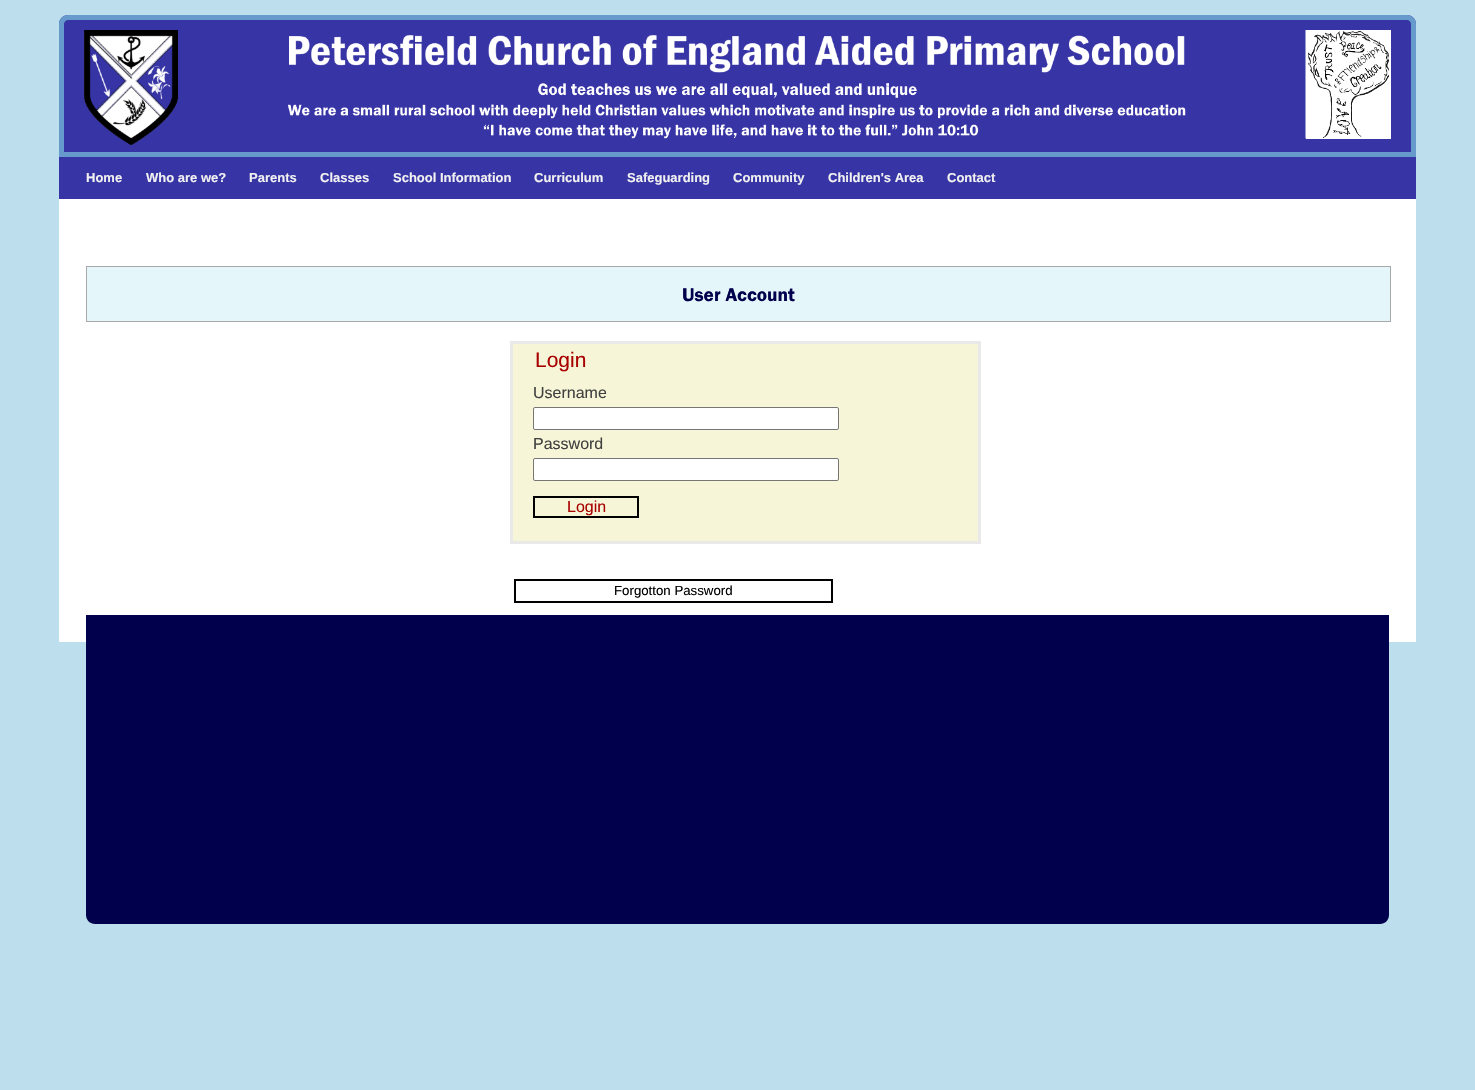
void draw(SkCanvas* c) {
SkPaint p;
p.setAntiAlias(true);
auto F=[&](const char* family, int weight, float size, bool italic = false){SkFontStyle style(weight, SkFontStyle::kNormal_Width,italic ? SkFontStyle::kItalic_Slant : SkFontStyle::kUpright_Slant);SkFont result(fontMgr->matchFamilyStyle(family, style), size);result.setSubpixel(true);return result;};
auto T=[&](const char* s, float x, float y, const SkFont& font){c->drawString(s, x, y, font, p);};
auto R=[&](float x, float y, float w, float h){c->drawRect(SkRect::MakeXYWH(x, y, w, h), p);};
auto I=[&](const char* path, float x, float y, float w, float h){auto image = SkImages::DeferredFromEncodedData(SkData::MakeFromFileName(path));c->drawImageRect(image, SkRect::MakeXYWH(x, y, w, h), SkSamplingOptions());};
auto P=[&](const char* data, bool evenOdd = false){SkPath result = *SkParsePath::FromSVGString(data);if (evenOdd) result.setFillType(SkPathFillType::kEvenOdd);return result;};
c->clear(0xffbcdeed);
p.setColor(0xffffffff);
R(59,199,1357,443);
p.setColor(0xff3734a5);
c->drawPath(P("M68 15h1339c5 0 9 4 9 9v128h-1357v-128c0-5 4-9 9-9z"),p);
p.setColor(0xff6699cc);
c->drawPath(P("M68 15h1339c5 0 9 4 9 9v128h-1357v-128c0-5 4-9 9-9zm0 5h1339c2 0 4 2 4 4v128h-1347v-128c0-2 2-4 4-4z",true),p);
I("1.png",84,30,94,115);
I("2.png",288,30,1103,109);
p.setColor(0xff3734a5);
R(59,157,1357,42);
p.setColor(0xff6699cc);
R(59,152,1357,5);
auto f1 = F("Liberation Sans",700,13);
p.setColor(0xfff1f1f1);
T("Home",86,182,f1);
T("Who are we?",146,182,f1);
T("Parents",249,182,f1);
T("Classes",320,182,f1);
T("School Information",393,182,f1);
T("Curriculum",534,182,f1);
T("Safeguarding",627,182,f1);
T("Community",733,182,f1);
T("Children's Area",828,182,f1);
T("Contact",947,182,f1);
p.setColor(0xffe5f6fb);
c->drawRect(SkRect::MakeXYWH(86.5,266.5,1304,55),p);
p.setStroke(true);
p.setStrokeWidth(1);
p.setColor(0xffa8a8a8);
c->drawRect(SkRect::MakeXYWH(86.5,266.5,1304,55),p);
auto f2 = F("Franklin Gothic",400,19.25);
p.setStroke(false);
p.setColor(0xff00004c);
T("User Account",682,301,f2);
p.setColor(0xfff7f5d7);
c->drawRect(SkRect::MakeXYWH(511.5,342.5,468,200),p);
p.setStroke(true);
p.setStrokeWidth(3);
p.setColor(0xffe9e9e9);
c->drawRect(SkRect::MakeXYWH(511.5,342.5,468,200),p);
auto f3 = F("Liberation Sans",400,21);
p.setStroke(false);
p.setColor(0xffa80000);
T("Login",535,367,f3);
auto f4 = F("Liberation Sans",400,16);
p.setColor(0xff404040);
T("Username",533,398,f4);
p.setColor(0xffffffff);
c->drawRoundRect(SkRect::MakeXYWH(533.5,407.5,305,22),1.5,1.5,p);
p.setStroke(true);
p.setStrokeWidth(1);
p.setColor(0xff767676);
c->drawRoundRect(SkRect::MakeXYWH(533.5,407.5,305,22),1.5,1.5,p);
p.setStroke(false);
p.setColor(0xff404040);
T("Password",533,449,f4);
p.setColor(0xffffffff);
c->drawRoundRect(SkRect::MakeXYWH(533.5,458.5,305,22),1.5,1.5,p);
p.setStroke(true);
p.setColor(0xff767676);
c->drawRoundRect(SkRect::MakeXYWH(533.5,458.5,305,22),1.5,1.5,p);
p.setStrokeWidth(2);
p.setColor(0xff000000);
c->drawRect(SkRect::MakeXYWH(534,497,104,20),p);
p.setStroke(false);
p.setColor(0xffa80000);
T("Login",567,512,f4);
p.setStroke(true);
p.setColor(0xff000000);
c->drawRect(SkRect::MakeXYWH(515,580,317,22),p);
auto f5 = F("Liberation Sans",400,13.25);
p.setStroke(false);
T("Forgotton Password",614,595,f5);
p.setColor(0xff00004c);
c->drawPath(P("M86 615h1303v300c0 5-4 9-9 9h-1285c-5 0-9-4-9-9z"),p);
}
